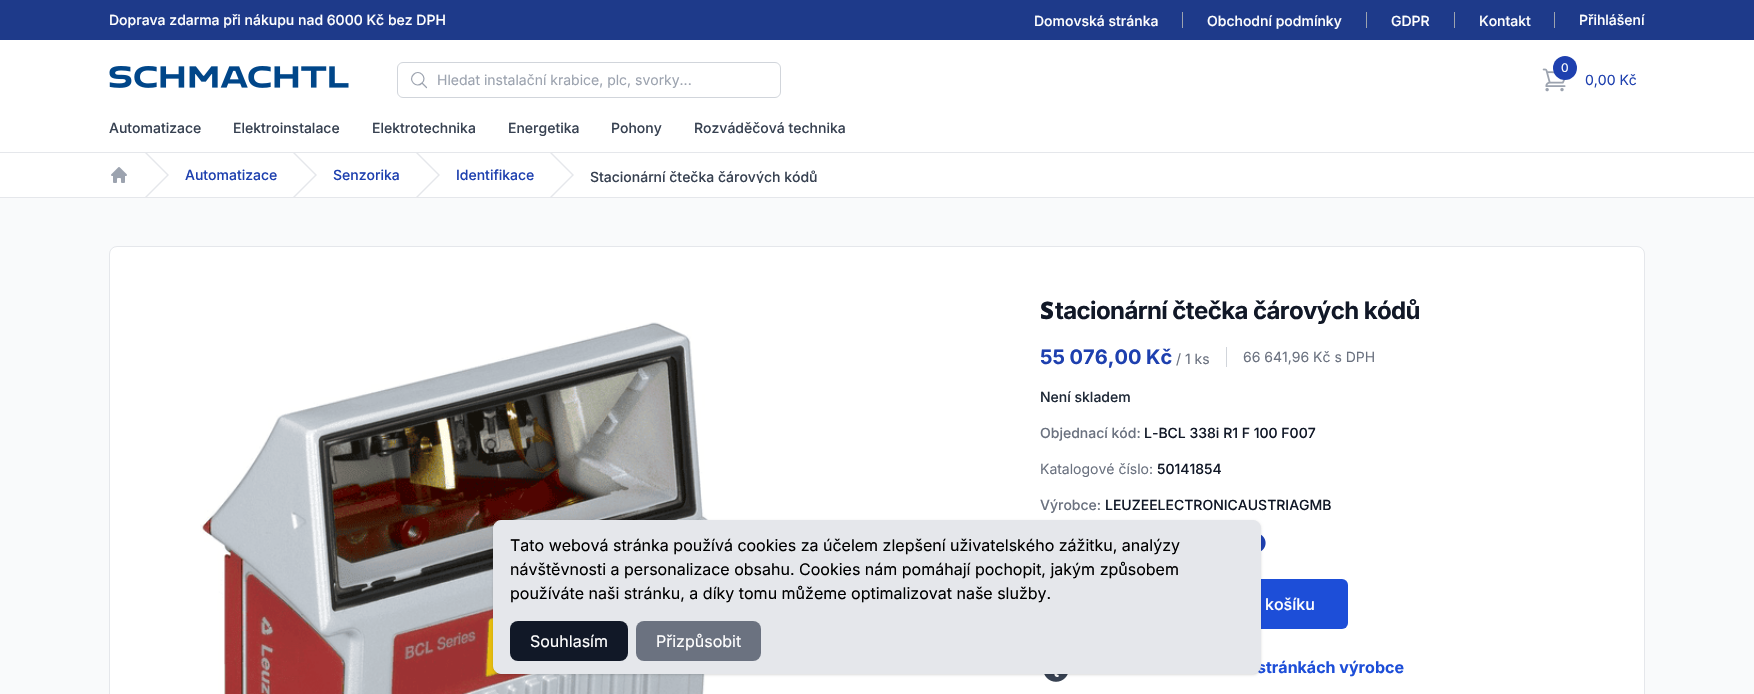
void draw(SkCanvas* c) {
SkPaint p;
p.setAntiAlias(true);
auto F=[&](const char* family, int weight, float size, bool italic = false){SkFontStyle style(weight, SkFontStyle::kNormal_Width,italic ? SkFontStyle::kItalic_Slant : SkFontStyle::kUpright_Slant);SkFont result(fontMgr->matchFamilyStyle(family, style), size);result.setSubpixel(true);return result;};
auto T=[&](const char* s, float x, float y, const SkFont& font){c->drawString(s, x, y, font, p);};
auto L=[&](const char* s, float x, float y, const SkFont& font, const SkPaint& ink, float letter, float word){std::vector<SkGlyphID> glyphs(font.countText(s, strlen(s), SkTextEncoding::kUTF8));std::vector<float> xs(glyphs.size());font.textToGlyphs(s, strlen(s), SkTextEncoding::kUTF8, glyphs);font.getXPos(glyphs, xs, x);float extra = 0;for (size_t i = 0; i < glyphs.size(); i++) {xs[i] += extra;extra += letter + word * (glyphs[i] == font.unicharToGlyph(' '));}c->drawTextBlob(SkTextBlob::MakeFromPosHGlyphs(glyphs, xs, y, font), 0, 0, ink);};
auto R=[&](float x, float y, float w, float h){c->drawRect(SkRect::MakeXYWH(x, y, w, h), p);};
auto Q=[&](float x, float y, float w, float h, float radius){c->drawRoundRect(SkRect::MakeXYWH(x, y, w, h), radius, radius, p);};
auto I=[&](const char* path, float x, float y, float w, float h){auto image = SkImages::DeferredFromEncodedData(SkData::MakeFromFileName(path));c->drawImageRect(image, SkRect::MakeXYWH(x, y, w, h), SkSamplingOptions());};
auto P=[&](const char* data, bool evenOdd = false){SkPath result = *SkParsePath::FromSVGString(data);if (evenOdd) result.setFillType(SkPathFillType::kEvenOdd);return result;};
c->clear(0xffffffff);
p.setColor(0xff1e3a8a);
R(0,0,1754,40);
auto f1 = F("Inter",500,14);
p.setColor(0xffffffff);
T("Doprava zdarma při nákupu nad 6000 Kč bez DPH",109,25,f1);
T("Domovská stránka",1034,26,f1);
p.setColor(0xff9ca3af);
R(1182,12,1,16);
p.setColor(0xffffffff);
T("Obchodní podmínky",1207,26,f1);
p.setColor(0xff9ca3af);
R(1366,12,1,16);
p.setColor(0xffffffff);
T("GDPR",1391,26,f1);
p.setColor(0xff9ca3af);
R(1454,12,1,16);
p.setColor(0xffffffff);
T("Kontakt",1479,26,f1);
p.setColor(0xff9ca3af);
R(1554,12,1,16);
p.setColor(0xffffffff);
T("Přihlášení",1579,25,f1);
I("1.png",109,66,240,22);
p.setStroke(true);
p.setStrokeWidth(1);
p.setColor(0xffd1d5db);
c->drawRoundRect(SkRect::MakeXYWH(397.5,62.5,383,35),5.5,5.5,p);
p.setStrokeWidth(1.2);
p.setStrokeCap(SkPaint::kRound_Cap);
p.setStrokeJoin(SkPaint::kRound_Join);
p.setColor(0xff9ca3af);
c->drawPath(P("M426.5 87.5l-4.5-4.5m0 0c6-5.5-3-14.5-8.5-8.5c-6 5.5 3 14.5 8.5 8.5z"),p);
auto f2 = F("Inter",400,14);
p.setStroke(false);
T("Hledat instalační krabice, plc, svorky...",437,85,f2);
I("2.png",1542,68,24,24);
p.setColor(0xff1e40af);
c->drawCircle(1565,68,12,p);
auto f3 = F("Inter",400,12);
p.setColor(0xffffffff);
T("0",1561,72,f3);
p.setColor(0xff1e40af);
T("0,00 Kč",1585,85,f2);
p.setColor(0xff374151);
T("Automatizace",109,133,f1);
T("Elektroinstalace",233,133,f1);
T("Elektrotechnika",372,133,f1);
T("Energetika",508,133,f1);
T("Pohony",611,133,f1);
T("Rozváděčová technika",694,133,f1);
p.setColor(0xfff9fafb);
R(0,198,1754,496);
p.setColor(0xffe5e7eb);
R(0,152,1754,1);
R(0,197,1754,1);
I("3.png",111,167,16,16);
c->drawPath(P("M145 153l22 22l-22 22h2l22-22l-22-22z"),p);
p.setColor(0xff1e40af);
T("Automatizace",185,180,f1);
p.setColor(0xffe5e7eb);
c->drawPath(P("M293 153l22 22l-22 22h2l22-22l-22-22z"),p);
p.setColor(0xff1e40af);
T("Senzorika",333,180,f1);
p.setColor(0xffe5e7eb);
c->drawPath(P("M416 153l22 22l-22 22h2l22-22l-22-22z"),p);
p.setColor(0xff1e40af);
T("Identifikace",456,180,f1);
p.setColor(0xffe5e7eb);
c->drawPath(P("M550 153l22 22l-22 22h2l22-22l-22-22z"),p);
c->save();
c->clipRect(SkRect::MakeXYWH(590,167,228,16));
p.setColor(0xff374151);
T("Stacionární čtečka čárových kódů",590,182,f1);
c->restore();
p.setColor(0xffffffff);
c->drawRoundRect(SkRect::MakeXYWH(109.5,246.5,1535,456),7.5,7.5,p);
p.setStroke(true);
p.setStrokeWidth(1);
p.setStrokeCap(SkPaint::kButt_Cap);
p.setStrokeJoin(SkPaint::kMiter_Join);
p.setColor(0xffe5e7eb);
c->drawRoundRect(SkRect::MakeXYWH(109.5,246.5,1535,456),7.5,7.5,p);
I("4.png",200,322,513,372);
auto f4 = F("Noto Sans",900,24);
p.setStroke(false);
p.setColor(0xff111827);
L("S",1040,319,f4,p,-.6,0);
auto f5 = F("Inter",700,24);
L("tacionární čtečka čárových kódů",1055,319,f5,p,-.6,0);
auto f6 = F("Inter",700,20);
p.setColor(0xff1e40af);
T("55 076,00 Kč",1040,364,f6);
p.setColor(0xff6b7280);
T("/ 1 ks",1176,364,f2);
p.setColor(0xffd1d5db);
R(1226,347,1,20);
p.setColor(0xff6b7280);
T("66 641,96 Kč s DPH",1243,362,f2);
p.setColor(0xff1f2937);
T("Není skladem",1040,402,f1);
p.setColor(0xff6b7280);
T("Objednací kód:",1040,438,f1);
p.setColor(0xff111827);
T("L-BCL 338i R1 F 100 F007",1144,438,f1);
p.setColor(0xff6b7280);
T("Katalogové číslo:",1040,474,f2);
p.setColor(0xff111827);
T("50141854",1157,474,f1);
p.setColor(0xff6b7280);
T("Výrobce:",1040,510,f1);
p.setColor(0xff111827);
T("LEUZEELECTRONICAUSTRIAGMB",1105,510,f1);
I("5.png",1261,534,5,17);
p.setColor(0xff1d4ed8);
Q(1159,579,189,50,6);
auto f7 = F("Inter",500,16);
p.setColor(0xffffffff);
T("košíku",1265,610,f7);
auto f8 = F("Inter",700,16);
p.setColor(0xff1d4ed8);
T("stránkách výrobce",1257,673,f8);
I("6.png",1044,674,24,8);
p.setColor(0x1a000000);
p.setMaskFilter(SkMaskFilter::MakeBlur(kNormal_SkBlurStyle, 1));
c->drawRoundRect(SkRect::MakeXYWH(494,522,766,152),7,7,p);
p.setMaskFilter(nullptr);
p.setMaskFilter(SkMaskFilter::MakeBlur(kNormal_SkBlurStyle, 1.5));
c->drawRoundRect(SkRect::MakeXYWH(493,521,768,154),8,8,p);
p.setMaskFilter(nullptr);
p.setColor(0xffe5e7eb);
c->drawRoundRect(SkRect::MakeXYWH(493.5,520.5,767,153),7.5,7.5,p);
p.setStroke(true);
c->drawRoundRect(SkRect::MakeXYWH(493.5,520.5,767,153),7.5,7.5,p);
auto f9 = F("Inter",400,16);
p.setStroke(false);
p.setColor(0xff000000);
T("Tato webová stránka používá cookies za účelem zlepšení uživatelského zážitku, analýzy",510,551,f9);
T("návštěvnosti a personalizace obsahu. Cookies nám pomáhají pochopit, jakým způsobem",510,575,f9);
T("používáte naši stránku, a díky tomu můžeme optimalizovat naše služby.",510,599,f9);
p.setColor(0xff111827);
Q(510,621,118,40,8);
p.setColor(0xffffffff);
T("Souhlasím",530,647,f9);
p.setColor(0xff6b7280);
Q(636,621,125,40,8);
p.setColor(0xffffffff);
T("Přizpůsobit",656,647,f9);
}
